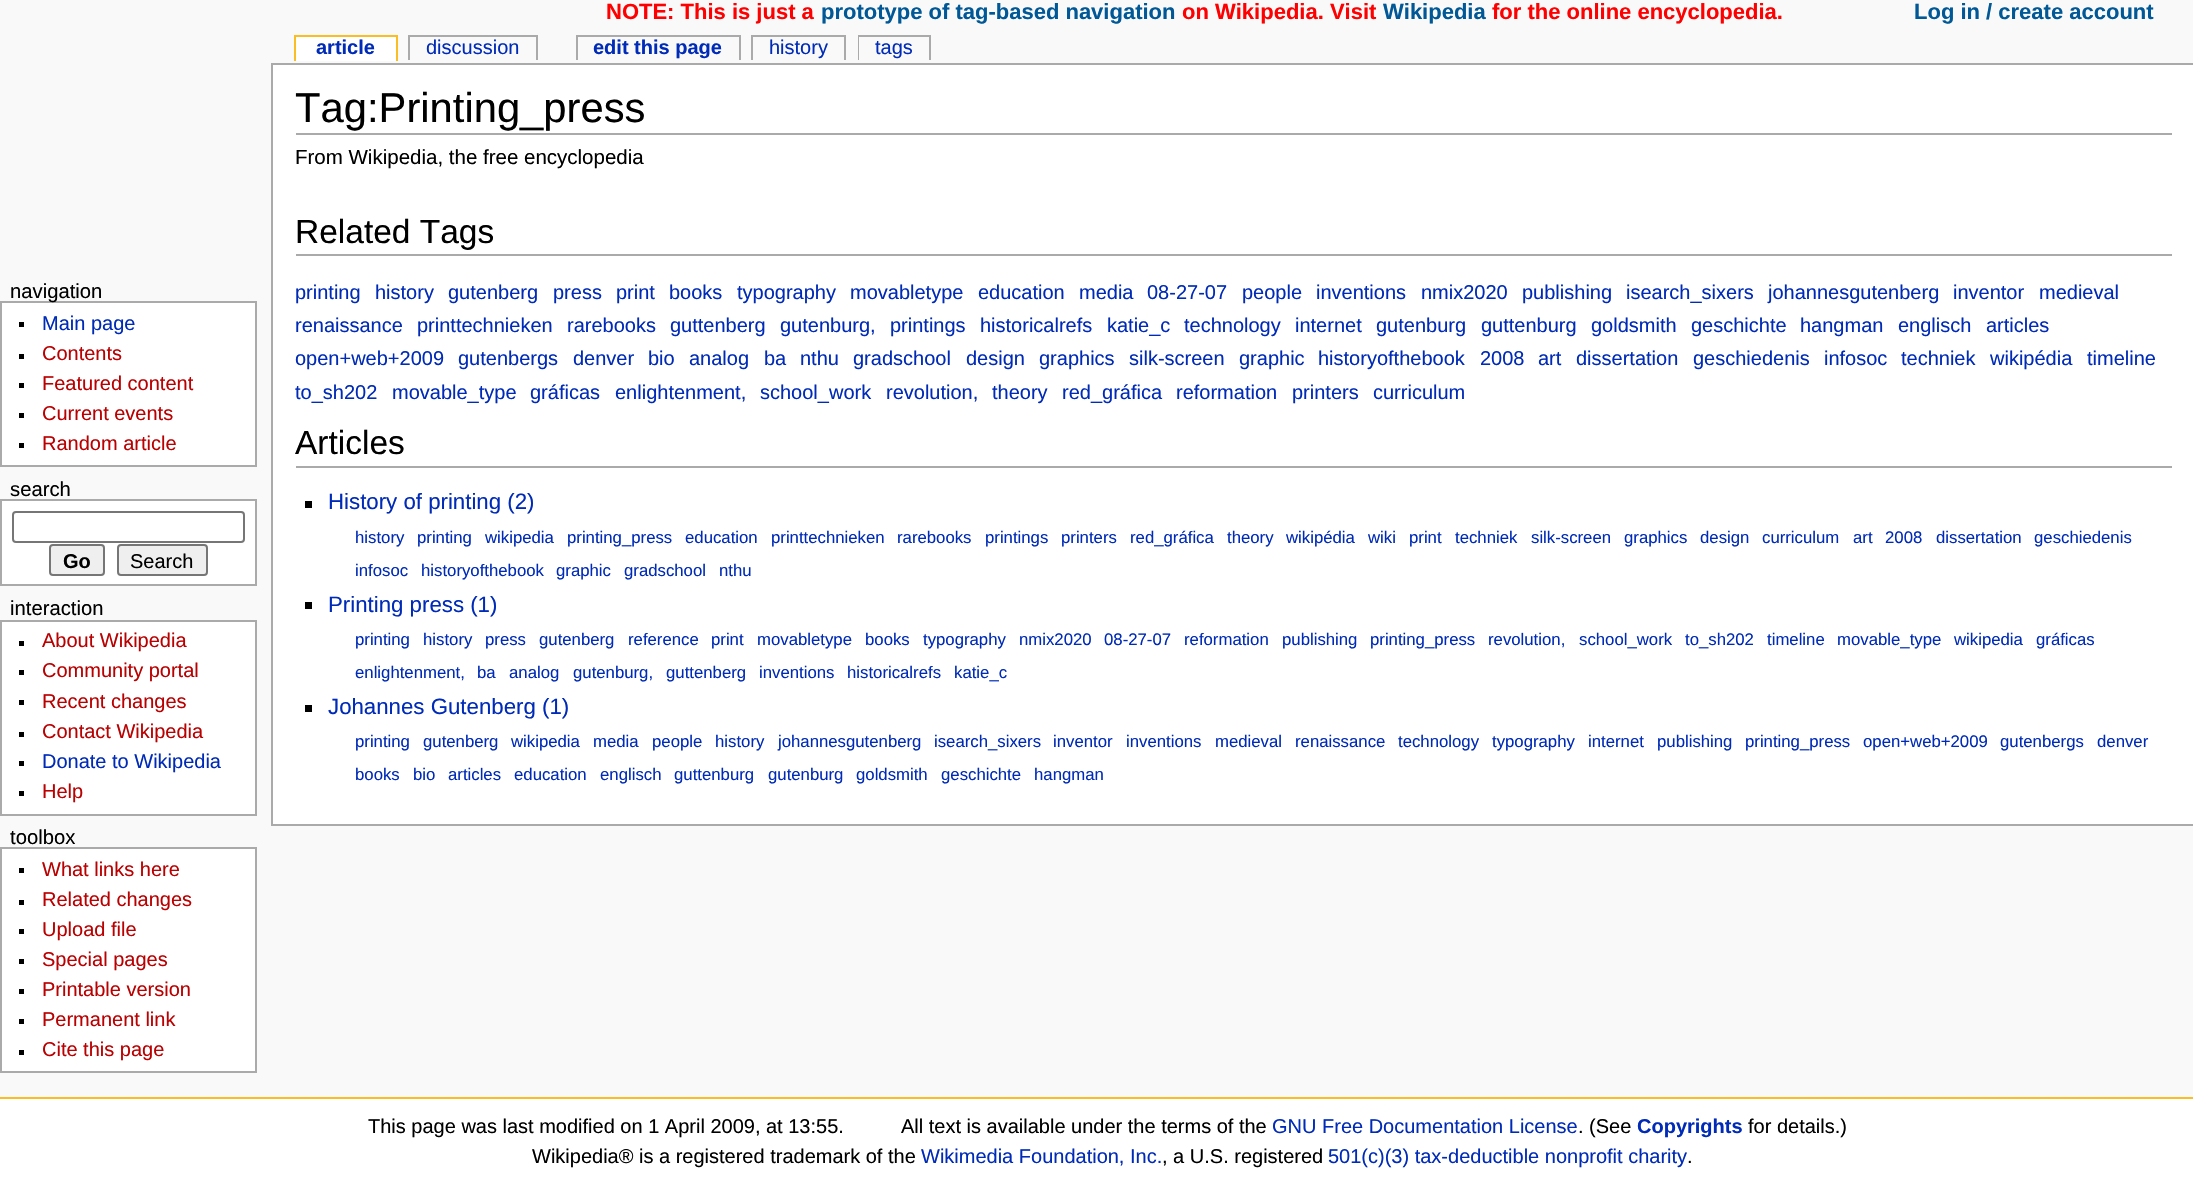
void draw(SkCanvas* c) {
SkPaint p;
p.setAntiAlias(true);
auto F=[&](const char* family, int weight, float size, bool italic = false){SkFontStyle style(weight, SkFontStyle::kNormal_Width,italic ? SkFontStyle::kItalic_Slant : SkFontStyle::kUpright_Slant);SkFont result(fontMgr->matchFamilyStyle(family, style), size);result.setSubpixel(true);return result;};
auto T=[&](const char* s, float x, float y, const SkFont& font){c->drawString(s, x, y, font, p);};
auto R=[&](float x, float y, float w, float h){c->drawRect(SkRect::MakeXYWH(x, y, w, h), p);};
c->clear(0xfff9f9f9);
auto f1 = F("Liberation Sans",700,22);
p.setColor(0xffff0000);
T("NOTE: This is just a",606,19,f1);
p.setColor(0xff005896);
T("prototype of tag-based navigation",821,19,f1);
p.setColor(0xffff0000);
T("on Wikipedia. Visit",1182,19,f1);
p.setColor(0xff005896);
T("Wikipedia",1383,19,f1);
p.setColor(0xffff0000);
T("for the online encyclopedia.",1492,19,f1);
p.setColor(0xff005896);
T("Log in / create account",1914,19,f1);
p.setColor(0xffffffff);
R(296,37,100,24);
auto f2 = F("Liberation Sans",700,20);
p.setColor(0xff002bb8);
T("article",316,54,f2);
p.setColor(0xfffabd23);
R(294,35,103,2);
R(396,35,2,26);
R(294,35,2,26);
auto f3 = F("Liberation Sans",400,20);
p.setColor(0xff002bb8);
T("discussion",426,54,f3);
p.setColor(0xffaaaaaa);
R(408,35,129,2);
R(536,35,2,25);
R(408,35,2,25);
p.setColor(0xff002bb8);
T("edit this page",593,54,f2);
p.setColor(0xffaaaaaa);
R(576,35,164,2);
R(739,35,2,25);
R(576,35,2,25);
p.setColor(0xff002bb8);
T("history",769,54,f3);
p.setColor(0xffaaaaaa);
R(751,35,94,2);
R(844,35,2,25);
R(751,35,2,25);
p.setColor(0xff002bb8);
T("tags",875,54,f3);
p.setColor(0xffaaaaaa);
R(858,35,73,2);
R(929,35,2,25);
R(858,35,2,25);
p.setColor(0xfffbfbfb);
R(859,37,1,23);
p.setColor(0xffffffff);
c->drawRect(SkRect::MakeXYWH(1,302,255,164),p);
p.setStroke(true);
p.setStrokeWidth(2);
p.setColor(0xffaaaaaa);
c->drawRect(SkRect::MakeXYWH(1,302,255,164),p);
auto f4 = F("Liberation Sans",400,20.25);
p.setStroke(false);
p.setColor(0xff000000);
T("navigation",10,298,f4);
R(19,322,5,5);
p.setColor(0xff002bb8);
T("Main page",42,330,f3);
p.setColor(0xff000000);
R(19,354,5,5);
p.setColor(0xffba0000);
T("Contents",42,360,f3);
p.setColor(0xff000000);
R(19,383,5,5);
p.setColor(0xffba0000);
T("Featured content",42,390,f3);
p.setColor(0xff000000);
R(19,413,5,5);
p.setColor(0xffba0000);
T("Current events",42,420,f3);
p.setColor(0xff000000);
R(19,443,5,5);
p.setColor(0xffba0000);
T("Random article",42,450,f3);
p.setColor(0xff000000);
T("search",10,496,f4);
p.setColor(0xffffffff);
c->drawRect(SkRect::MakeXYWH(1,500,255,85),p);
p.setStroke(true);
p.setColor(0xffaaaaaa);
c->drawRect(SkRect::MakeXYWH(1,500,255,85),p);
p.setColor(0xff767676);
c->drawRoundRect(SkRect::MakeXYWH(13,512,231,30),3,3,p);
p.setStroke(false);
p.setColor(0xffefefef);
c->drawRoundRect(SkRect::MakeXYWH(50,545,54,30),3,3,p);
p.setStroke(true);
p.setColor(0xff767676);
c->drawRoundRect(SkRect::MakeXYWH(50,545,54,30),3,3,p);
p.setStroke(false);
p.setColor(0xff000000);
T("Go",63,568,f2);
p.setColor(0xffefefef);
c->drawRoundRect(SkRect::MakeXYWH(118,545,89,30),3,3,p);
p.setStroke(true);
p.setColor(0xff767676);
c->drawRoundRect(SkRect::MakeXYWH(118,545,89,30),3,3,p);
p.setStroke(false);
p.setColor(0xff000000);
T("Search",130,568,f3);
T("interaction",10,615,f4);
p.setColor(0xffffffff);
c->drawRect(SkRect::MakeXYWH(1,621,255,194),p);
p.setStroke(true);
p.setColor(0xffaaaaaa);
c->drawRect(SkRect::MakeXYWH(1,621,255,194),p);
p.setStroke(false);
p.setColor(0xff000000);
R(19,641,5,5);
p.setColor(0xffba0000);
T("About Wikipedia",42,647,f3);
p.setColor(0xff000000);
R(19,670,5,5);
p.setColor(0xffba0000);
T("Community portal",42,677,f3);
p.setColor(0xff000000);
R(19,700,5,5);
p.setColor(0xffba0000);
T("Recent changes",42,708,f3);
p.setColor(0xff000000);
R(19,732,5,5);
p.setColor(0xffba0000);
T("Contact Wikipedia",42,738,f3);
p.setColor(0xff000000);
R(19,761,5,5);
p.setColor(0xff002bb8);
T("Donate to Wikipedia",42,768,f3);
p.setColor(0xff000000);
R(19,791,5,5);
p.setColor(0xffba0000);
T("Help",42,798,f3);
p.setColor(0xff000000);
T("toolbox",10,844,f4);
p.setColor(0xffffffff);
c->drawRect(SkRect::MakeXYWH(1,848,255,224),p);
p.setStroke(true);
p.setColor(0xffaaaaaa);
c->drawRect(SkRect::MakeXYWH(1,848,255,224),p);
p.setStroke(false);
p.setColor(0xff000000);
R(19,868,5,5);
p.setColor(0xffba0000);
T("What links here",42,876,f3);
p.setColor(0xff000000);
R(19,900,5,5);
p.setColor(0xffba0000);
T("Related changes",42,906,f3);
p.setColor(0xff000000);
R(19,929,5,5);
p.setColor(0xffba0000);
T("Upload file",42,936,f3);
p.setColor(0xff000000);
R(19,959,5,5);
p.setColor(0xffba0000);
T("Special pages",42,966,f3);
p.setColor(0xff000000);
R(19,989,5,5);
p.setColor(0xffba0000);
T("Printable version",42,996,f3);
p.setColor(0xff000000);
R(19,1019,5,5);
p.setColor(0xffba0000);
T("Permanent link",42,1026,f3);
p.setColor(0xff000000);
R(19,1050,5,5);
p.setColor(0xffba0000);
T("Cite this page",42,1056,f3);
p.setColor(0xffffffff);
R(273,65,1920,759);
p.setColor(0xffaaaaaa);
R(271,63,1922,2);
R(271,824,1922,2);
R(271,63,2,763);
R(296,133,1876,2);
auto f5 = F("Liberation Sans",400,41.75);
p.setColor(0xff000000);
T("Tag:Printing_press",295,122,f5);
auto f6 = F("Liberation Sans",400,20.5);
T("From Wikipedia, the free encyclopedia",295,164,f6);
p.setColor(0xffaaaaaa);
R(296,254,1876,2);
auto f7 = F("Liberation Sans",400,33.5);
p.setColor(0xff000000);
T("Related Tags",295,243,f7);
p.setColor(0xff002bb8);
T("printing",295,299,f3);
T("history",375,299,f3);
T("gutenberg",448,299,f3);
T("press",553,299,f3);
T("print",616,299,f3);
T("books",669,299,f3);
T("typography",737,299,f3);
T("movabletype",850,299,f3);
T("education",978,299,f3);
T("media",1079,299,f3);
T("08-27-07",1147,299,f3);
T("people",1242,299,f3);
T("inventions",1316,299,f3);
T("nmix2020",1421,299,f3);
T("publishing",1522,299,f3);
T("isearch_sixers",1626,299,f3);
T("johannesgutenberg",1768,299,f3);
T("inventor",1953,299,f3);
T("medieval",2039,299,f3);
T("renaissance",295,332,f3);
T("printtechnieken",417,332,f3);
T("rarebooks",567,332,f3);
T("guttenberg",670,332,f3);
T("gutenburg,",780,332,f3);
T("printings",890,332,f3);
T("historicalrefs",980,332,f3);
T("katie_c",1107,332,f3);
T("technology",1184,332,f3);
T("internet",1295,332,f3);
T("gutenburg",1376,332,f3);
T("guttenburg",1481,332,f3);
T("goldsmith",1591,332,f3);
T("geschichte",1691,332,f3);
T("hangman",1800,332,f3);
T("englisch",1898,332,f3);
T("articles",1986,332,f3);
T("open+web+2009",295,365,f3);
T("gutenbergs",458,365,f3);
T("denver",573,365,f3);
T("bio",648,365,f3);
T("analog",689,365,f3);
T("ba",764,365,f3);
T("nthu",800,365,f3);
T("gradschool",853,365,f3);
T("design",966,365,f3);
T("graphics",1039,365,f3);
T("silk-screen",1129,365,f3);
T("graphic",1239,365,f3);
T("historyofthebook",1318,365,f3);
T("2008",1480,365,f3);
T("art",1538,365,f3);
T("dissertation",1576,365,f3);
T("geschiedenis",1693,365,f3);
T("infosoc",1824,365,f3);
T("techniek",1901,365,f3);
T("wikipédia",1990,365,f3);
T("timeline",2087,365,f3);
T("to_sh202",295,399,f3);
T("movable_type",392,399,f3);
T("gráficas",530,399,f3);
T("enlightenment,",615,399,f3);
T("school_work",760,399,f3);
T("revolution,",886,399,f3);
T("theory",992,399,f3);
T("red_gráfica",1062,399,f3);
T("reformation",1176,399,f3);
T("printers",1292,399,f3);
T("curriculum",1373,399,f3);
p.setColor(0xffaaaaaa);
R(296,466,1876,2);
p.setColor(0xff000000);
T("Articles",295,454,f7);
R(305,501,7,7);
auto f8 = F("Liberation Sans",400,22.25);
p.setColor(0xff002bb8);
T("History of printing (2)",328,509,f8);
auto f9 = F("Liberation Sans",400,16.75);
T("history",355,543,f9);
T("printing",417,543,f9);
T("wikipedia",485,543,f9);
T("printing_press",567,543,f9);
T("education",685,543,f9);
T("printtechnieken",771,543,f9);
T("rarebooks",897,543,f9);
T("printings",985,543,f9);
T("printers",1061,543,f9);
T("red_gráfica",1130,543,f9);
T("theory",1227,543,f9);
T("wikipédia",1286,543,f9);
T("wiki",1368,543,f9);
T("print",1409,543,f9);
T("techniek",1455,543,f9);
T("silk-screen",1531,543,f9);
T("graphics",1624,543,f9);
T("design",1700,543,f9);
T("curriculum",1762,543,f9);
T("art",1853,543,f9);
T("2008",1885,543,f9);
T("dissertation",1936,543,f9);
T("geschiedenis",2034,543,f9);
T("infosoc",355,576,f9);
T("historyofthebook",421,576,f9);
T("graphic",556,576,f9);
T("gradschool",624,576,f9);
T("nthu",719,576,f9);
p.setColor(0xff000000);
R(305,602,7,7);
p.setColor(0xff002bb8);
T("Printing press (1)",328,612,f8);
T("printing",355,645,f9);
T("history",423,645,f9);
T("press",485,645,f9);
T("gutenberg",539,645,f9);
T("reference",628,645,f9);
T("print",711,645,f9);
T("movabletype",757,645,f9);
T("books",865,645,f9);
T("typography",923,645,f9);
T("nmix2020",1019,645,f9);
T("08-27-07",1104,645,f9);
T("reformation",1184,645,f9);
T("publishing",1282,645,f9);
T("printing_press",1370,645,f9);
T("revolution,",1488,645,f9);
T("school_work",1579,645,f9);
T("to_sh202",1685,645,f9);
T("timeline",1767,645,f9);
T("movable_type",1837,645,f9);
T("wikipedia",1954,645,f9);
T("gráficas",2036,645,f9);
T("enlightenment,",355,678,f9);
T("ba",477,678,f9);
T("analog",509,678,f9);
T("gutenburg,",573,678,f9);
T("guttenberg",666,678,f9);
T("inventions",759,678,f9);
T("historicalrefs",847,678,f9);
T("katie_c",954,678,f9);
p.setColor(0xff000000);
R(305,705,7,7);
p.setColor(0xff002bb8);
T("Johannes Gutenberg (1)",328,714,f8);
T("printing",355,747,f9);
T("gutenberg",423,747,f9);
T("wikipedia",511,747,f9);
T("media",593,747,f9);
T("people",652,747,f9);
T("history",715,747,f9);
T("johannesgutenberg",778,747,f9);
T("isearch_sixers",934,747,f9);
T("inventor",1053,747,f9);
T("inventions",1126,747,f9);
T("medieval",1215,747,f9);
T("renaissance",1295,747,f9);
T("technology",1398,747,f9);
T("typography",1492,747,f9);
T("internet",1588,747,f9);
T("publishing",1657,747,f9);
T("printing_press",1745,747,f9);
T("open+web+2009",1863,747,f9);
T("gutenbergs",2000,747,f9);
T("denver",2097,747,f9);
T("books",355,780,f9);
T("bio",413,780,f9);
T("articles",448,780,f9);
T("education",514,780,f9);
T("englisch",600,780,f9);
T("guttenburg",674,780,f9);
T("gutenburg",768,780,f9);
T("goldsmith",856,780,f9);
T("geschichte",941,780,f9);
T("hangman",1034,780,f9);
p.setColor(0xffffffff);
R(0,1099,2193,87);
p.setColor(0xfffabd23);
R(0,1097,2193,2);
p.setColor(0xff000000);
T("This page was last modified on 1 April 2009, at 13:55.",368,1133,f3);
T("All text is available under the terms of the",901,1133,f3);
p.setColor(0xff002bb8);
T("GNU Free Documentation License",1272,1133,f3);
p.setColor(0xff000000);
T(". (See",1578,1133,f3);
p.setColor(0xff002bb8);
T("Copyrights",1637,1133,f2);
p.setColor(0xff000000);
T("for details.)",1748,1133,f3);
T("Wikipedia® is a registered trademark of the",532,1163,f3);
p.setColor(0xff002bb8);
T("Wikimedia Foundation, Inc.",921,1163,f3);
p.setColor(0xff000000);
T(", a U.S. registered",1162,1163,f3);
p.setColor(0xff002bb8);
T("501(c)(3) tax-deductible nonprofit charity",1328,1163,f3);
p.setColor(0xff000000);
T(".",1687,1163,f3);
}
